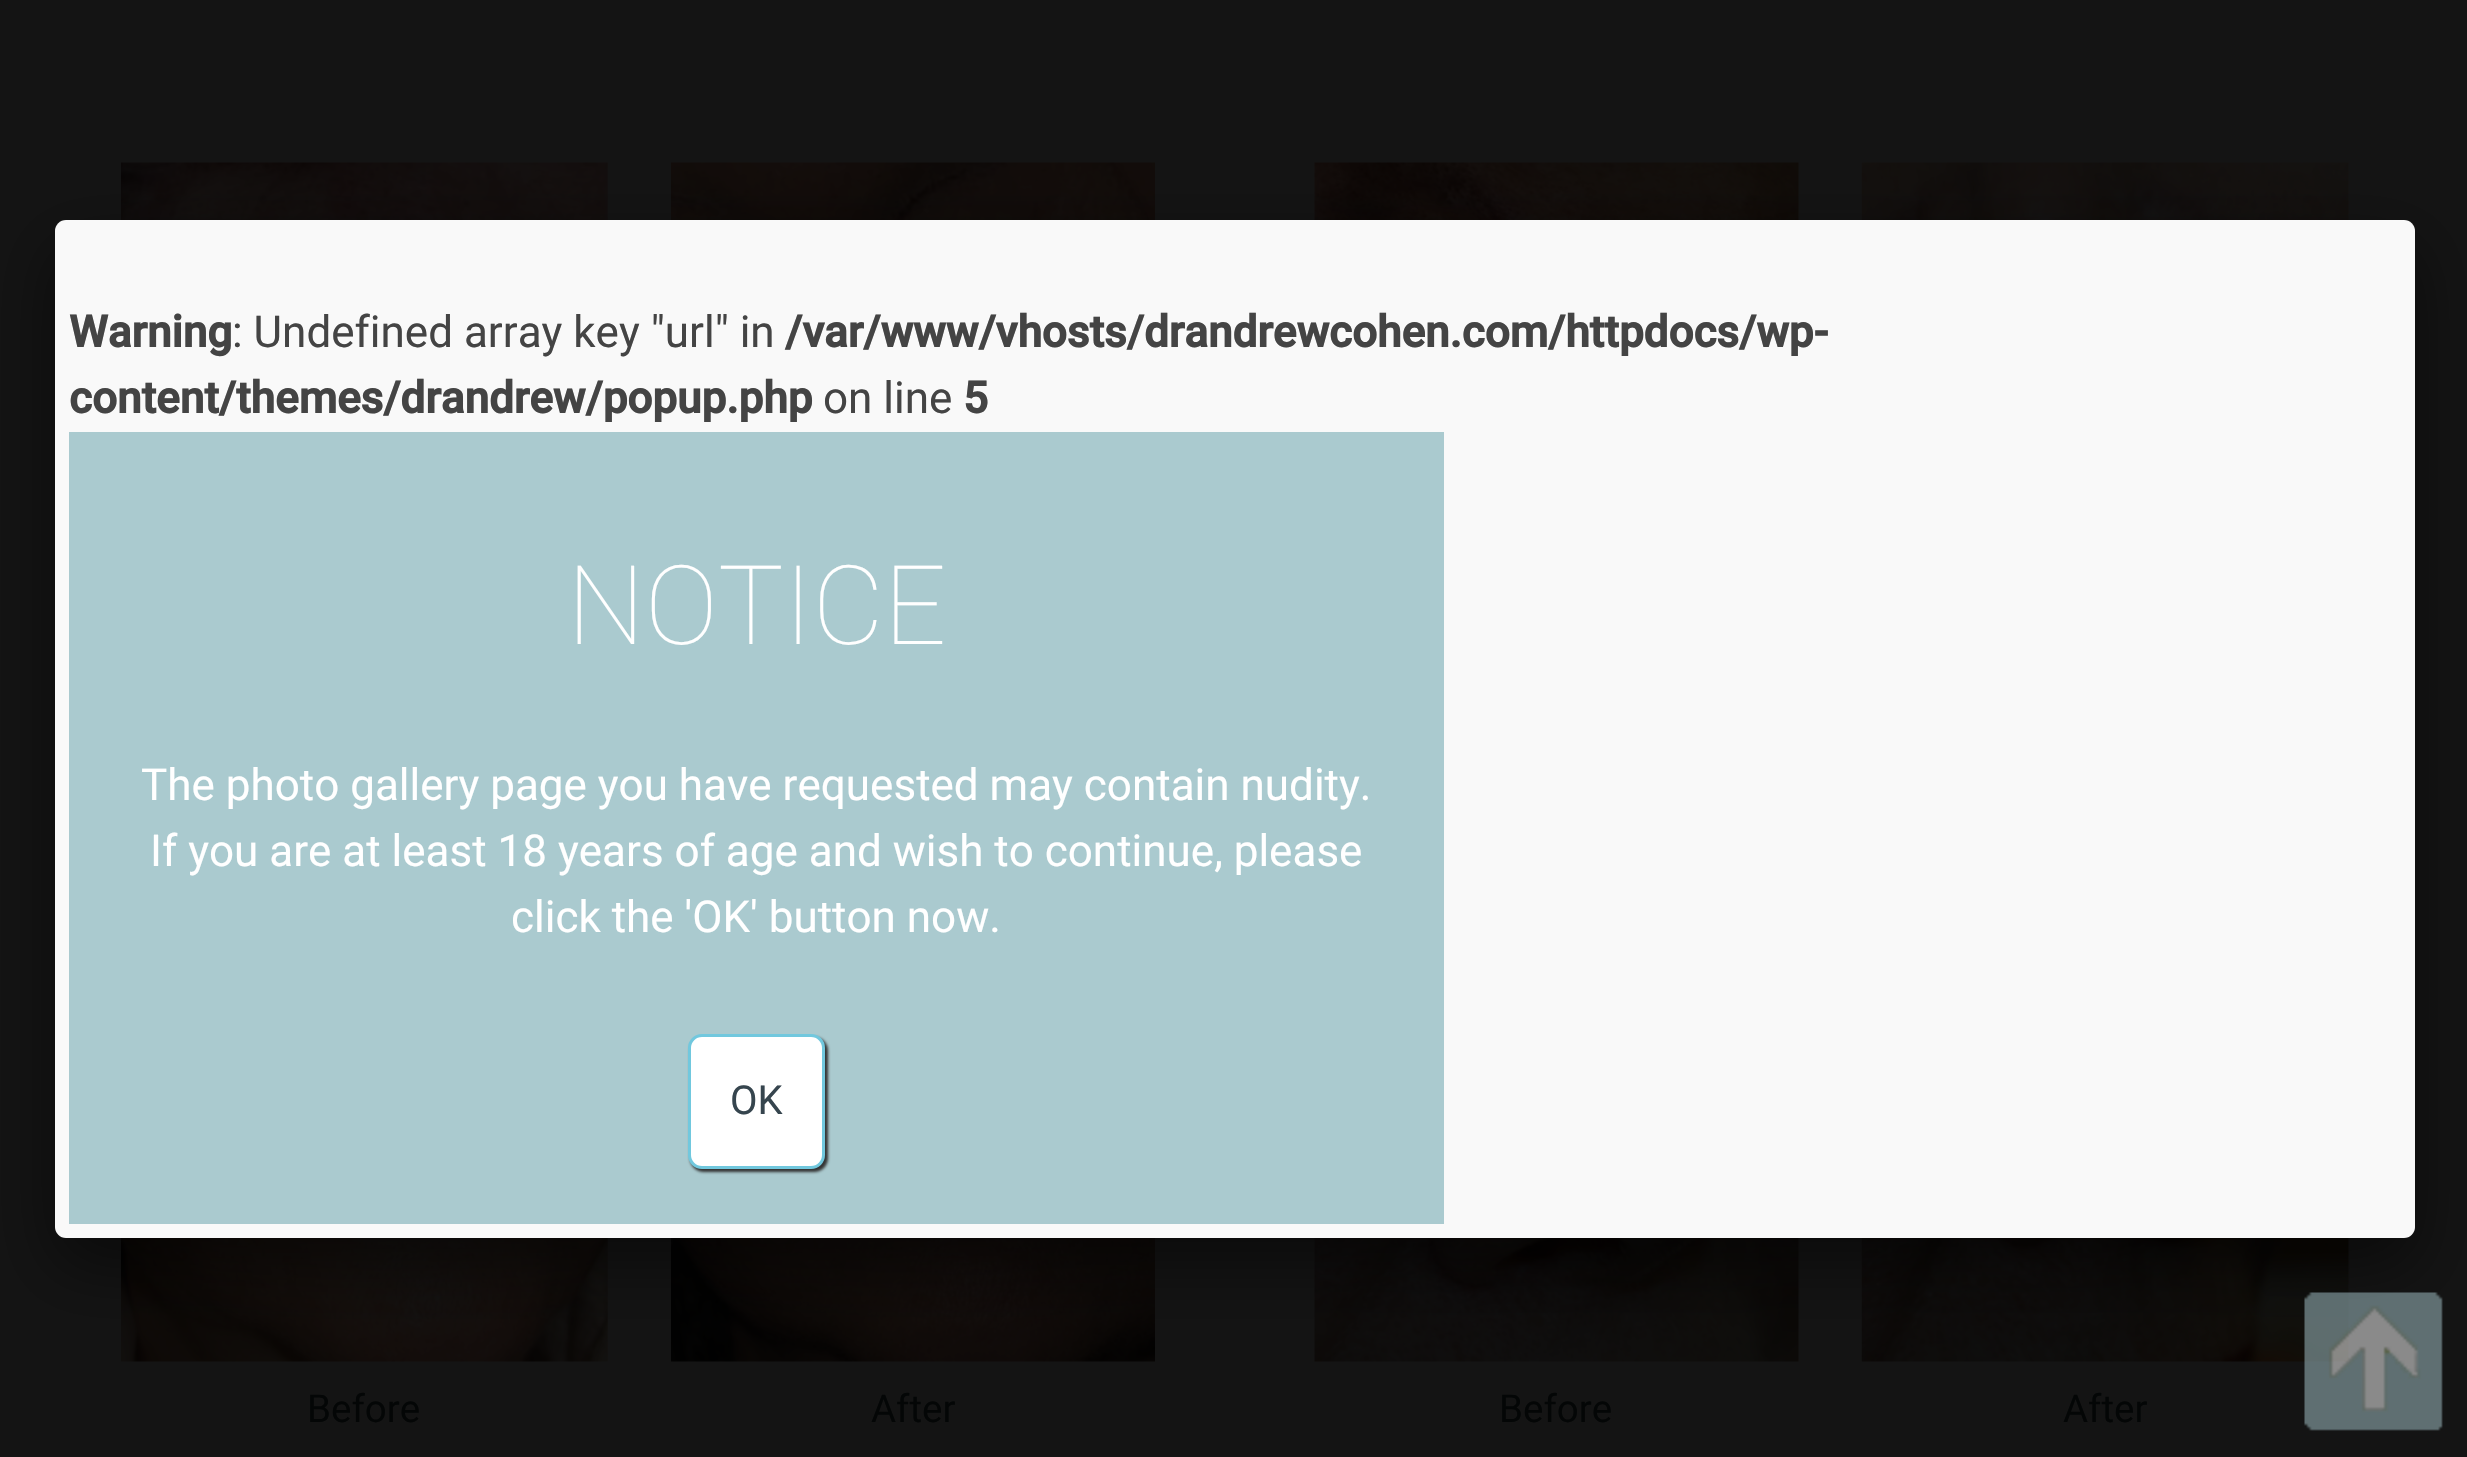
void draw(SkCanvas* c) {
SkPaint p;
p.setAntiAlias(true);
auto F=[&](const char* family, int weight, float size, bool italic = false){SkFontStyle style(weight, SkFontStyle::kNormal_Width,italic ? SkFontStyle::kItalic_Slant : SkFontStyle::kUpright_Slant);SkFont result(fontMgr->matchFamilyStyle(family, style), size);result.setSubpixel(true);return result;};
auto T=[&](const char* s, float x, float y, const SkFont& font){c->drawString(s, x, y, font, p);};
auto R=[&](float x, float y, float w, float h){c->drawRect(SkRect::MakeXYWH(x, y, w, h), p);};
auto Q=[&](float x, float y, float w, float h, float radius){c->drawRoundRect(SkRect::MakeXYWH(x, y, w, h), radius, radius, p);};
auto I=[&](const char* path, float x, float y, float w, float h){auto image = SkImages::DeferredFromEncodedData(SkData::MakeFromFileName(path));c->drawImageRect(image, SkRect::MakeXYWH(x, y, w, h), SkSamplingOptions());};
c->clear(0xff141414);
I("1.png",121,162,487,58);
I("2.png",671,162,484,58);
I("3.png",1314,162,485,58);
I("4.png",1861,162,488,58);
I("5.png",121,1238,487,124);
I("6.png",671,1238,484,124);
I("7.png",1314,1238,485,124);
I("8.png",1861,1238,488,124);
p.setColor(0x80000000);
p.setMaskFilter(SkMaskFilter::MakeBlur(kNormal_SkBlurStyle, 34.5));
c->drawRoundRect(SkRect::MakeXYWH(55,248,2360,1017),11,11,p);
p.setMaskFilter(nullptr);
p.setColor(0xfff9f9f9);
Q(55,220,2360,1018,11);
auto f1 = F("Roboto",700,44);
p.setColor(0xff444444);
T("Warning",69,347,f1);
auto f2 = F("Roboto",400,44);
T(": Undefined array key \"url\" in",232,347,f2);
T("/var/www/vhosts/drandrewcohen.com/httpdocs/wp-",785,347,f1);
T("content/themes/drandrew/popup.php",69,413,f1);
T("on line",823,413,f2);
T("5",963,413,f1);
p.setColor(0xffaacacf);
R(69,432,1375,792);
auto f3 = F("Roboto",100,110);
p.setColor(0xffffffff);
T("NOTICE",567,644,f3);
T("The photo gallery page you have requested may contain nudity.",141,800,f2);
T("If you are at least 18 years of age and wish to continue, please",150,866,f2);
T("click the 'OK' button now.",511,932,f2);
p.setColor(0xff333333);
p.setMaskFilter(SkMaskFilter::MakeBlur(kNormal_SkBlurStyle, 1.5));
c->drawRoundRect(SkRect::MakeXYWH(690,1037,138,135),14,14,p);
p.setMaskFilter(nullptr);
p.setColor(0xffffffff);
c->drawRoundRect(SkRect::MakeXYWH(689.5,1035.5,134,132),12.5,12.5,p);
p.setStroke(true);
p.setStrokeWidth(3);
p.setColor(0xff71c8de);
c->drawRoundRect(SkRect::MakeXYWH(689.5,1035.5,134,132),12.5,12.5,p);
auto f4 = F("Roboto",400,40);
p.setStroke(false);
p.setColor(0xff36454e);
T("OK",730,1114,f4);
auto f5 = F("Roboto",400,38.5);
p.setColor(0xff040606);
T("Before",307,1422,f5);
T("After",871,1422,f5);
T("Before",1499,1422,f5);
T("After",2063,1422,f5);
I("9.png",2304,1292,139,139);
}
